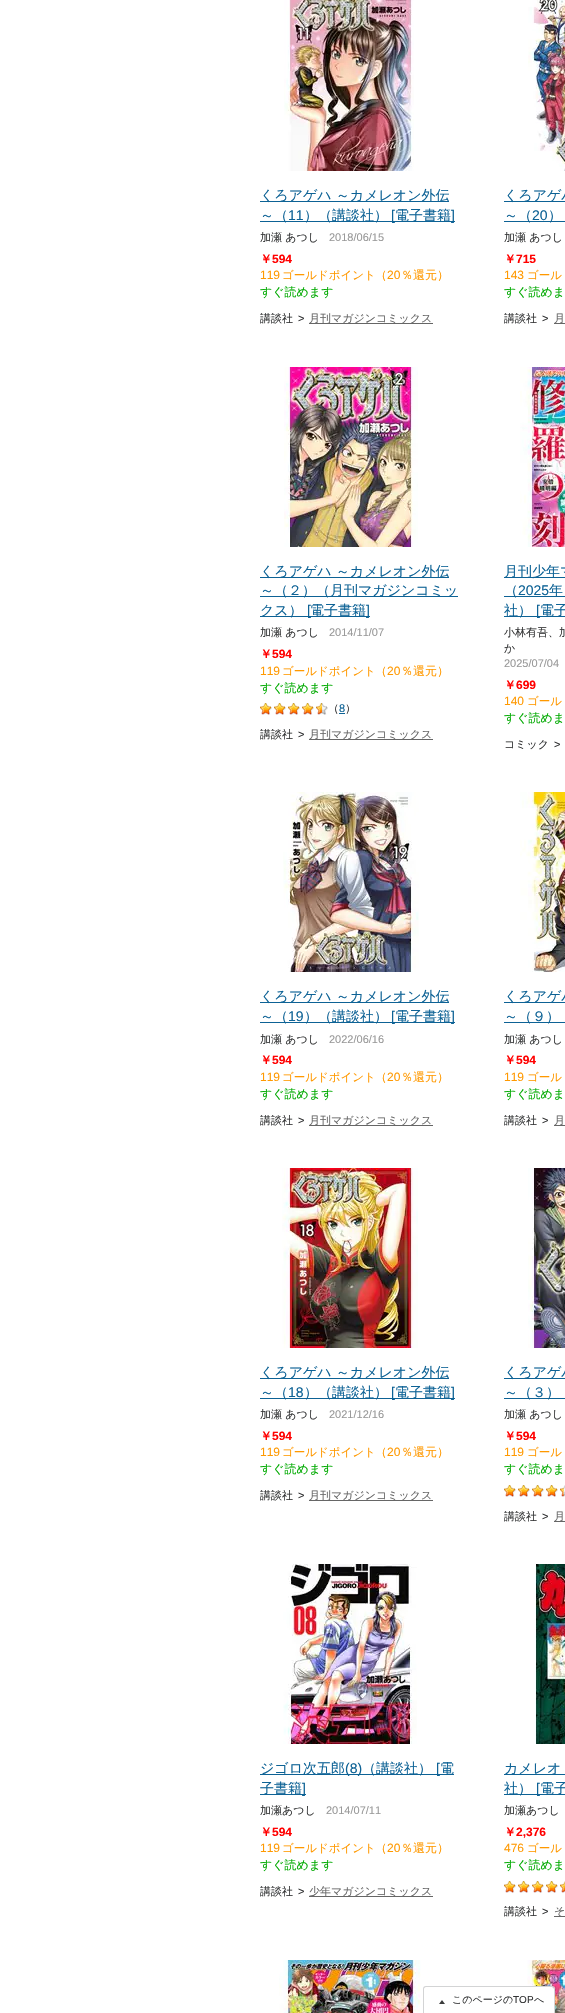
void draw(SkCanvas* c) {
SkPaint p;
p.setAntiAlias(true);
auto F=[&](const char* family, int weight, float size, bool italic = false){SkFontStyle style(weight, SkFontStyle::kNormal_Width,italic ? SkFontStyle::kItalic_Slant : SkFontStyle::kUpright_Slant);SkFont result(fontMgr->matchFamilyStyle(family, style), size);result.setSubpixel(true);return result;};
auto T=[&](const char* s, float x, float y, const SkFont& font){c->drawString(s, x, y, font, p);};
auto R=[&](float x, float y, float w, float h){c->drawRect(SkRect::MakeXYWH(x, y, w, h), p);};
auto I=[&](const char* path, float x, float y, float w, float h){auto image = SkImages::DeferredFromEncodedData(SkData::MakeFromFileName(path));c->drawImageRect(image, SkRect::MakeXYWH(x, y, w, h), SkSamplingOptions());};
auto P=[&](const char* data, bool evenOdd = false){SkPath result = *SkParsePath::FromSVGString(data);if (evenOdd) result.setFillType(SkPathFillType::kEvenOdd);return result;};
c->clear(0xffffffff);
I("1.png",284,0,130,171);
p.setColor(0xff0d6295);
R(260,201,189,1);
auto f1 = F("WenQuanYi Zen Hei",500,14);
T("くろアゲハ ～カメレオン外伝",260,200,f1);
R(260,221,195,1);
T("～（",260,220,f1);
auto f2 = F("Liberation Sans",400,14);
T("11",288,220,f2);
T("）（講談社）",304,220,f1);
T("[",391,220,f2);
T("電子書籍",395,220,f1);
T("]",451,220,f2);
auto f3 = F("WenQuanYi Zen Hei",500,11);
p.setColor(0xff333435);
T("加瀬 あつし",260,241,f3);
auto f4 = F("Liberation Sans",400,11);
p.setColor(0xff999999);
T("2018/06/15",329,241,f4);
auto f5 = F("WenQuanYi Zen Hei",700,12);
p.setColor(0xffff0000);
T("￥",260,263,f5);
auto f6 = F("Liberation Sans",700,12);
T("594",272,263,f6);
auto f7 = F("Liberation Sans",400,12);
p.setColor(0xffff9900);
T("119",260,279,f7);
auto f8 = F("WenQuanYi Zen Hei",500,11.5);
T("ゴールドポイント",282,279,f8);
auto f9 = F("WenQuanYi Zen Hei",500,12);
T("（",375,279,f9);
T("20",387,279,f7);
T("％還元）",401,279,f9);
p.setColor(0xff00aa00);
T("すぐ読めます",260,296,f9);
p.setColor(0xff333435);
T("講談社",260,322,f3);
T(">",298,322,f4);
p.setColor(0xff666666);
R(309,323,124,1);
T("月刊マガジンコミックス",309,322,f3);
I("2.png",528,0,37,171);
p.setColor(0xff0d6295);
R(504,201,61,1);
T("くろアゲハ",504,200,f1);
R(504,221,61,1);
T("～（",504,220,f1);
T("20",532,220,f2);
T("）",548,220,f1);
p.setColor(0xff333435);
T("加瀬 あつし",504,241,f3);
p.setColor(0xffff0000);
T("￥",504,263,f5);
T("715",516,263,f6);
p.setColor(0xffff9900);
T("143",504,279,f7);
T("ゴール",527,279,f8);
p.setColor(0xff00aa00);
T("すぐ読めま",504,296,f9);
p.setColor(0xff333435);
T("講談社",504,322,f3);
T(">",542,322,f4);
p.setColor(0xff666666);
R(554,323,11,1);
T("月",554,322,f3);
I("3.png",284,367,134,180);
p.setColor(0xff0d6295);
R(260,577,189,1);
T("くろアゲハ ～カメレオン外伝",260,576,f1);
R(260,596,198,1);
T("～（２）（月刊マガジンコミッ",260,595,f1);
R(260,616,110,1);
T("クス）",260,615,f1);
T("[",307,615,f2);
T("電子書籍",310,615,f1);
T("]",366,615,f2);
p.setColor(0xff333435);
T("加瀬 あつし",260,636,f3);
p.setColor(0xff999999);
T("2014/11/07",329,636,f4);
p.setColor(0xffff0000);
T("￥",260,658,f5);
T("594",272,658,f6);
p.setColor(0xffff9900);
T("119",260,675,f7);
T("ゴールドポイント",282,675,f8);
T("（",375,675,f9);
T("20",387,675,f7);
T("％還元）",401,675,f9);
p.setColor(0xff00aa00);
T("すぐ読めます",260,692,f9);
I("4.png",260,703,68,12);
p.setColor(0xff333435);
T("（",328,712,f3);
p.setColor(0xff0d6295);
R(339,713,6,1);
T("8",339,712,f4);
p.setColor(0xff333435);
T("）",345,712,f3);
T("講談社",260,738,f3);
T(">",298,738,f4);
p.setColor(0xff666666);
R(309,739,124,1);
T("月刊マガジンコミックス",309,738,f3);
I("5.png",520,367,45,180);
p.setColor(0xff0d6295);
R(504,577,61,1);
T("月刊少年マ",504,576,f1);
R(504,596,61,1);
T("（",504,595,f1);
T("2025",518,595,f2);
T("年",549,595,f1);
R(504,616,61,1);
T("社）",504,615,f1);
T("[",536,615,f2);
T("電子",540,615,f1);
p.setColor(0xff333435);
T("小林有吾、加",504,636,f3);
T("か",504,652,f3);
p.setColor(0xff999999);
T("2025/07/04",504,667,f4);
p.setColor(0xffff0000);
T("￥",504,689,f5);
T("699",516,689,f6);
p.setColor(0xffff9900);
T("140",504,705,f7);
T("ゴール",527,705,f8);
p.setColor(0xff00aa00);
T("すぐ読めま",504,722,f9);
p.setColor(0xff333435);
T("コミック",504,748,f3);
T(">",554,748,f4);
I("6.png",283,792,136,180);
p.setColor(0xff0d6295);
R(260,1002,189,1);
T("くろアゲハ ～カメレオン外伝",260,1001,f1);
R(260,1022,195,1);
T("～（",260,1021,f1);
T("19",288,1021,f2);
T("）（講談社）",304,1021,f1);
T("[",391,1021,f2);
T("電子書籍",395,1021,f1);
T("]",451,1021,f2);
p.setColor(0xff333435);
T("加瀬 あつし",260,1043,f3);
p.setColor(0xff999999);
T("2022/06/16",329,1043,f4);
p.setColor(0xffff0000);
T("￥",260,1064,f5);
T("594",272,1064,f6);
p.setColor(0xffff9900);
T("119",260,1081,f7);
T("ゴールドポイント",282,1081,f8);
T("（",375,1081,f9);
T("20",387,1081,f7);
T("％還元）",401,1081,f9);
p.setColor(0xff00aa00);
T("すぐ読めます",260,1098,f9);
p.setColor(0xff333435);
T("講談社",260,1124,f3);
T(">",298,1124,f4);
p.setColor(0xff666666);
R(309,1125,124,1);
T("月刊マガジンコミックス",309,1124,f3);
I("7.png",520,792,45,180);
p.setColor(0xff0d6295);
R(504,1002,61,1);
T("くろアゲハ",504,1001,f1);
R(504,1022,61,1);
T("～（９）",504,1021,f1);
p.setColor(0xff333435);
T("加瀬 あつし",504,1043,f3);
p.setColor(0xffff0000);
T("￥",504,1064,f5);
T("594",516,1064,f6);
p.setColor(0xffff9900);
T("119",504,1081,f7);
T("ゴール",527,1081,f8);
p.setColor(0xff00aa00);
T("すぐ読めま",504,1098,f9);
p.setColor(0xff333435);
T("講談社",504,1124,f3);
T(">",542,1124,f4);
p.setColor(0xff666666);
R(554,1125,11,1);
T("月",554,1124,f3);
I("8.png",282,1168,136,180);
p.setColor(0xff0d6295);
R(260,1378,189,1);
T("くろアゲハ ～カメレオン外伝",260,1377,f1);
R(260,1398,195,1);
T("～（",260,1397,f1);
T("18",288,1397,f2);
T("）（講談社）",304,1397,f1);
T("[",391,1397,f2);
T("電子書籍",395,1397,f1);
T("]",451,1397,f2);
p.setColor(0xff333435);
T("加瀬 あつし",260,1418,f3);
p.setColor(0xff999999);
T("2021/12/16",329,1418,f4);
p.setColor(0xffff0000);
T("￥",260,1440,f5);
T("594",272,1440,f6);
p.setColor(0xffff9900);
T("119",260,1456,f7);
T("ゴールドポイント",282,1456,f8);
T("（",375,1456,f9);
T("20",387,1456,f7);
T("％還元）",401,1456,f9);
p.setColor(0xff00aa00);
T("すぐ読めます",260,1473,f9);
p.setColor(0xff333435);
T("講談社",260,1499,f3);
T(">",298,1499,f4);
p.setColor(0xff666666);
R(309,1500,124,1);
T("月刊マガジンコミックス",309,1499,f3);
I("9.png",528,1168,37,180);
p.setColor(0xff0d6295);
R(504,1378,61,1);
T("くろアゲハ",504,1377,f1);
R(504,1398,61,1);
T("～（３）",504,1397,f1);
p.setColor(0xff333435);
T("加瀬 あつし",504,1418,f3);
p.setColor(0xffff0000);
T("￥",504,1440,f5);
T("594",516,1440,f6);
p.setColor(0xffff9900);
T("119",504,1456,f7);
T("ゴール",527,1456,f8);
p.setColor(0xff00aa00);
T("すぐ読めま",504,1473,f9);
I("10.png",504,1485,61,12);
p.setColor(0xff333435);
T("講談社",504,1520,f3);
T(">",542,1520,f4);
p.setColor(0xff666666);
R(554,1521,11,1);
T("月",554,1520,f3);
I("11.png",283,1564,134,180);
p.setColor(0xff0d6295);
R(260,1774,194,1);
T("ジゴロ次五郎",260,1773,f1);
T("(8)",345,1773,f2);
T("（講談社）",362,1773,f1);
T("[",436,1773,f2);
T("電",440,1773,f1);
R(260,1794,46,1);
T("子書籍",260,1793,f1);
T("]",302,1793,f2);
p.setColor(0xff333435);
T("加瀬あつし",260,1814,f3);
p.setColor(0xff999999);
T("2014/07/11",326,1814,f4);
p.setColor(0xffff0000);
T("￥",260,1836,f5);
T("594",272,1836,f6);
p.setColor(0xffff9900);
T("119",260,1852,f7);
T("ゴールドポイント",282,1852,f8);
T("（",375,1852,f9);
T("20",387,1852,f7);
T("％還元）",401,1852,f9);
p.setColor(0xff00aa00);
T("すぐ読めます",260,1869,f9);
p.setColor(0xff333435);
T("講談社",260,1895,f3);
T(">",298,1895,f4);
p.setColor(0xff666666);
R(309,1896,124,1);
T("少年マガジンコミックス",309,1895,f3);
I("12.png",535,1564,30,180);
p.setColor(0xff0d6295);
R(504,1774,61,1);
T("カメレオ",504,1773,f1);
R(504,1794,61,1);
T("社）",504,1793,f1);
T("[",536,1793,f2);
T("電子",540,1793,f1);
p.setColor(0xff333435);
T("加瀬あつし",504,1814,f3);
p.setColor(0xffff0000);
T("￥",504,1836,f5);
T("2,376",516,1836,f6);
p.setColor(0xffff9900);
T("476",504,1852,f7);
T("ゴール",527,1852,f8);
p.setColor(0xff00aa00);
T("すぐ読めま",504,1869,f9);
I("13.png",504,1881,61,12);
p.setColor(0xff333435);
T("講談社",504,1915,f3);
T(">",542,1915,f4);
p.setColor(0xff666666);
R(554,1916,11,1);
T("そ",554,1915,f3);
I("14.png",279,1960,142,53);
I("15.png",527,1960,38,53);
p.setColor(0xffffffff);
c->drawPath(P("M426 1987h126c1 0 2 1 2 2v24h-130v-24c0-1 1-2 2-2z"),p);
p.setColor(0xffd3d4d5);
c->drawPath(P("M426 1986h126c2 0 3 1 3 3v24h-132v-24c0-2 1-3 3-3zm0 1h126c1 0 2 1 2 2v24h-130v-24c0-1 1-2 2-2z",true),p);
I("16.png",439,2000,6,4);
auto f10 = F("WenQuanYi Zen Hei",500,10);
p.setColor(0xff333435);
T("このページの",452,2003,f10);
auto f11 = F("Liberation Sans",400,10);
T("TOP",513,2003,f11);
T("へ",534,2003,f10);
}
